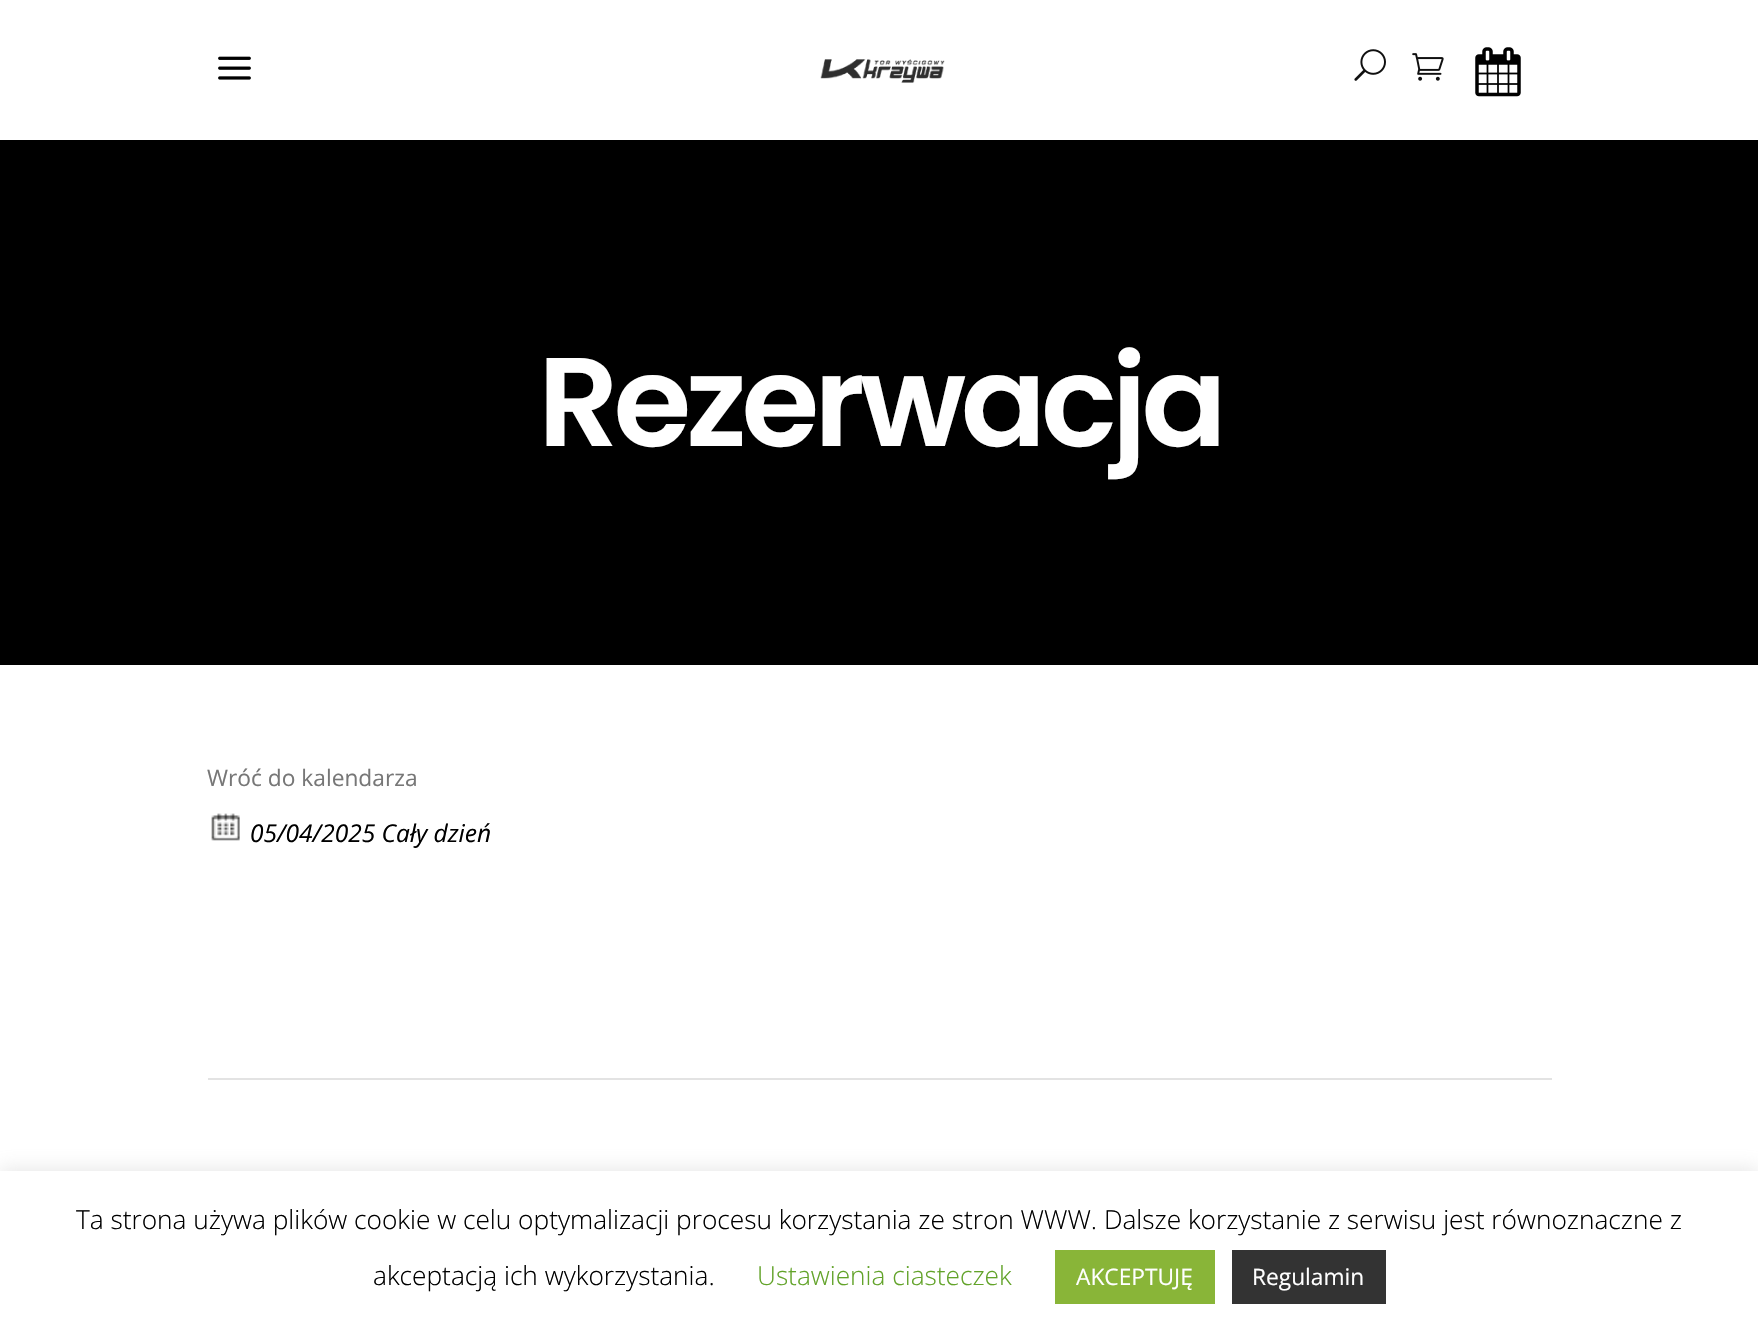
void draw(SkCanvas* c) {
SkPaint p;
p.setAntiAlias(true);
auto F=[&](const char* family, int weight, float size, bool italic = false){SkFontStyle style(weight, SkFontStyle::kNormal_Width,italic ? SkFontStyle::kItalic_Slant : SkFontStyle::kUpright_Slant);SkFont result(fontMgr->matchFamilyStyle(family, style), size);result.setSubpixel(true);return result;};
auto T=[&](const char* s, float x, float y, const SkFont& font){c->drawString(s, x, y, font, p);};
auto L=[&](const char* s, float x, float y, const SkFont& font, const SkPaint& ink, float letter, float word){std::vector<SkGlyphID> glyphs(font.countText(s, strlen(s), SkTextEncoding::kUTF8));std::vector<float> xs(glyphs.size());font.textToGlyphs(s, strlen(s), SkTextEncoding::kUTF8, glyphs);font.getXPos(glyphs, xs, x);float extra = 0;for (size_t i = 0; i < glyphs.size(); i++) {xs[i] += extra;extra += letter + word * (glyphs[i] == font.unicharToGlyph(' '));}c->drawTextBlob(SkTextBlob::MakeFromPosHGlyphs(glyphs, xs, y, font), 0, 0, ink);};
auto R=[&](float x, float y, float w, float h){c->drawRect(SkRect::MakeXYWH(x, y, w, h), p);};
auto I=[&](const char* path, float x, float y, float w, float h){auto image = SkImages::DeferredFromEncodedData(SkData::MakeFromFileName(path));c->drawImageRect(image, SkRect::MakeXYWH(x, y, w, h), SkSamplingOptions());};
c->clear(0xffffffff);
I("1.png",218,56,33,24);
I("2.png",820,59,125,24);
I("3.png",1354,49,32,32);
I("4.png",1412,53,32,28);
I("5.png",1475,47,46,50);
p.setColor(0xff000000);
R(0,140,1758,525);
auto f1 = F("Poppins",600,126);
p.setColor(0xffffffff);
L("Rezerwacja",538,446,f1,p,-5.25,0);
auto f2 = F("Open Sans",400,22.75);
p.setColor(0xff777777);
T("Wróć do kalendarza",207,786,f2);
I("6.png",211,813,29,28);
auto f3 = F("Open Sans",400,24.5,true);
p.setColor(0xff000000);
T("05/04/2025 Cały dzień",250,842,f3);
p.setColor(0xffe3e3e3);
R(208,1078,1344,2);
p.setColor(0x4dacabab);
p.setMaskFilter(SkMaskFilter::MakeBlur(kNormal_SkBlurStyle, 9));
c->drawRect(SkRect::MakeXYWH(0,1169,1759,163),p);
p.setMaskFilter(nullptr);
p.setColor(0xffffffff);
R(0,1171,1758,161);
auto f4 = F("Open Sans",300,26.25);
p.setColor(0xff000000);
T("Ta strona używa plików cookie w celu optymalizacji procesu korzystania ze stron WWW. Dalsze korzystanie z serwisu jest równoznaczne z",76,1229,f4);
T("akceptacją ich wykorzystania.",373,1285,f4);
p.setColor(0xff62a329);
T("Ustawienia ciasteczek",757,1285,f4);
p.setColor(0xff89b538);
R(1055,1250,160,54);
p.setColor(0xffffffff);
T("AKCEPTUJĘ",1076,1285,f2);
p.setColor(0xff333333);
R(1232,1250,154,54);
p.setColor(0xffffffff);
T("Regulamin",1252,1285,f2);
}
